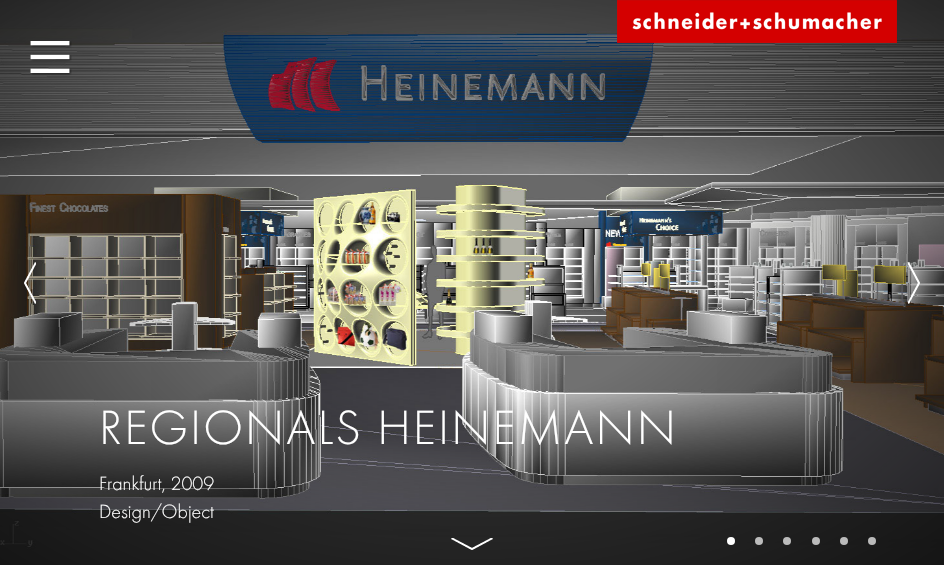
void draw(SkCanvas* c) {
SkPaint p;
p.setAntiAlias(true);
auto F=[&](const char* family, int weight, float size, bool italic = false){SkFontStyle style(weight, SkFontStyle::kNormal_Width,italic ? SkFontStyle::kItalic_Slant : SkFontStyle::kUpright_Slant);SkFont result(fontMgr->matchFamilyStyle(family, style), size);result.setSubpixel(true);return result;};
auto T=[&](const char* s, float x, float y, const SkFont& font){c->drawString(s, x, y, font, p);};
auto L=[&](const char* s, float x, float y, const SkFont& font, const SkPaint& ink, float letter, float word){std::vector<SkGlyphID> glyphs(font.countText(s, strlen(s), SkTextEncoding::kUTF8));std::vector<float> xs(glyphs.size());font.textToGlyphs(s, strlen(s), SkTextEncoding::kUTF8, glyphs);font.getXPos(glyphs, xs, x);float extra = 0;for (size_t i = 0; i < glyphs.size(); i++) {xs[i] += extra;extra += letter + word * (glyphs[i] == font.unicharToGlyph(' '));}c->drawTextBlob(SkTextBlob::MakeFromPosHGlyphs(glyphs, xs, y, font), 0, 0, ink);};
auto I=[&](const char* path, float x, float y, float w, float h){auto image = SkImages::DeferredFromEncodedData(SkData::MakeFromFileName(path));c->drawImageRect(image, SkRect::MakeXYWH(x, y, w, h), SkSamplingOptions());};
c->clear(0xffffffff);
I("1.png",0,0,944,565);
I("2.png",24,262,12,42);
I("3.png",908,262,12,42);
I("4.png",451,538,42,12);
I("5.png",617,0,280,43);
I("6.png",30,41,42,35);
auto f1 = F("Futura",300,50);
p.setColor(0xffffffff);
L("REGIONALS HEINEMANN",99,444,f1,p,2,0);
auto f2 = F("Futura",300,20);
T("Frankfurt, 2009",99,490,f2);
T("Design/Object",99,518,f2);
c->drawCircle(731,541,4,p);
p.setColor(0xffbcbcbc);
c->drawCircle(759,541,4,p);
p.setColor(0xffbbbbbb);
c->drawCircle(787,541,4,p);
c->drawCircle(816,541,4,p);
c->drawCircle(844,541,4,p);
p.setColor(0xffbababa);
c->drawCircle(872,541,4,p);
}
